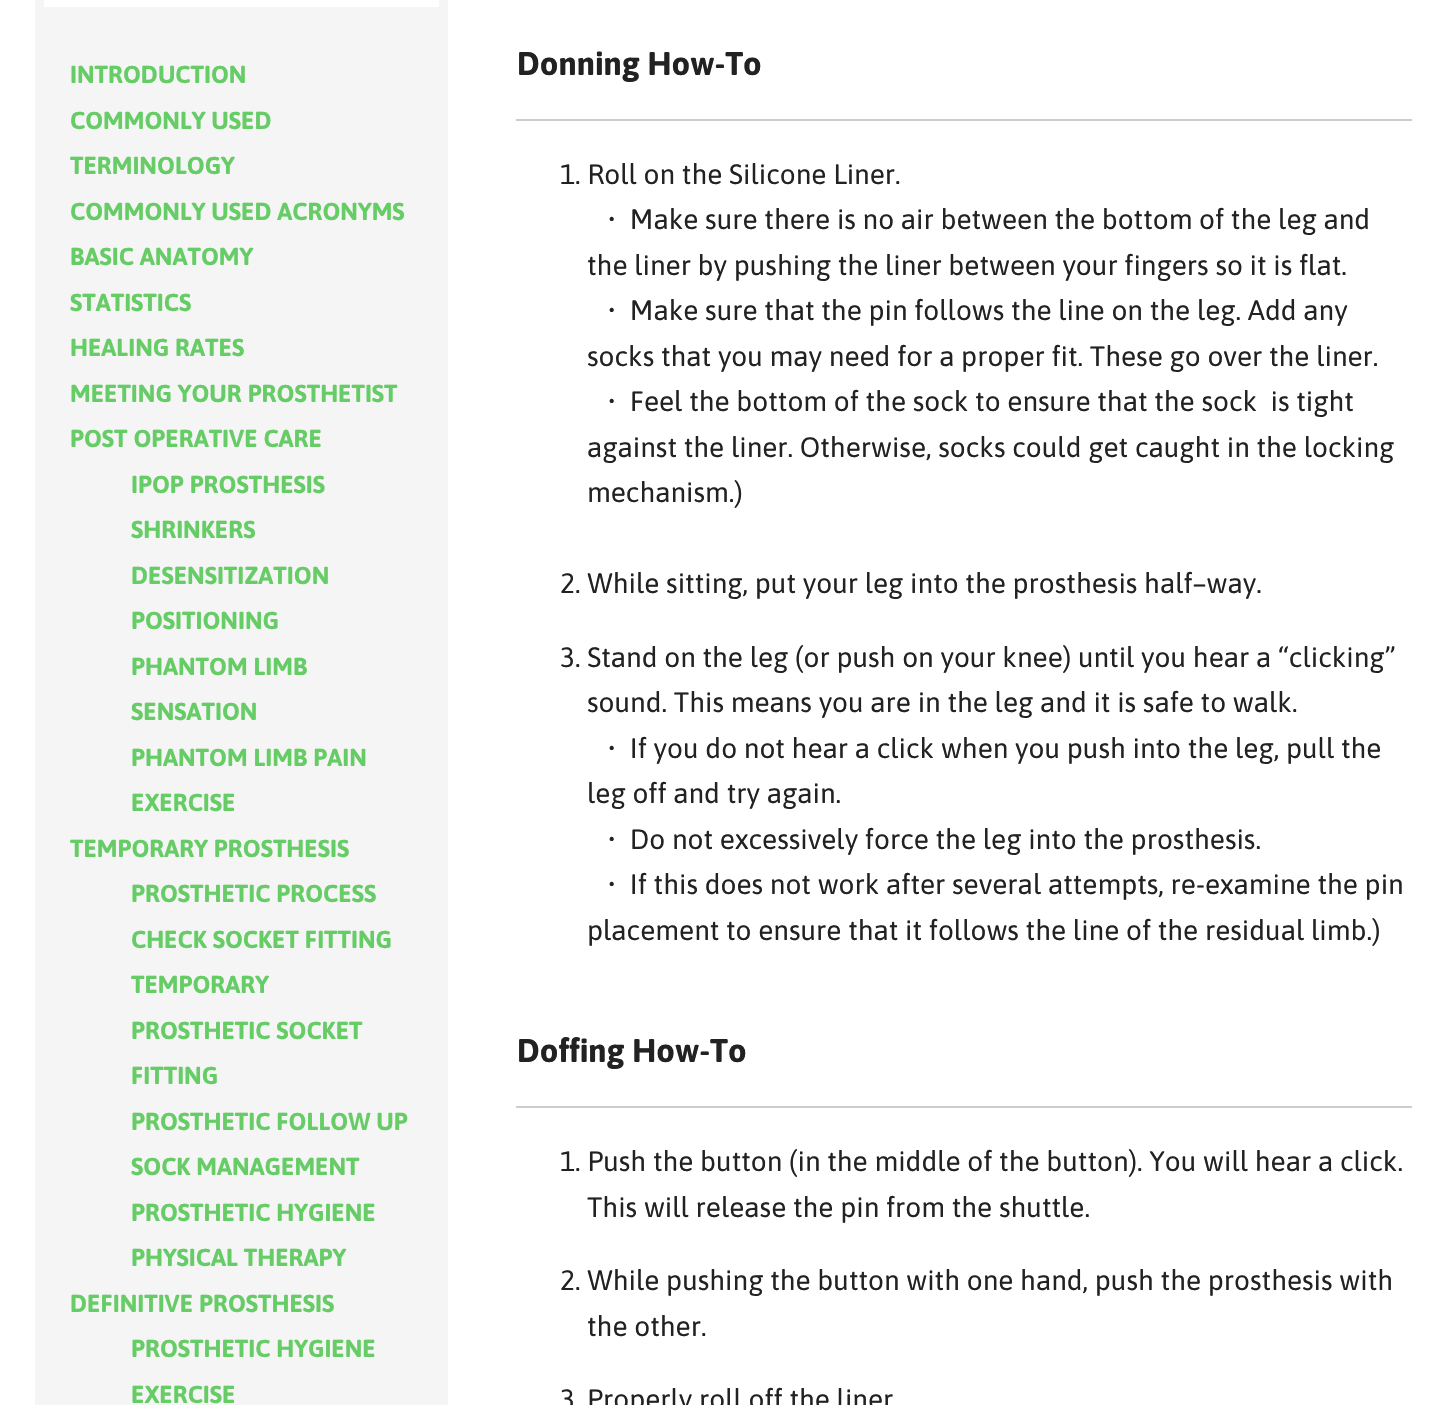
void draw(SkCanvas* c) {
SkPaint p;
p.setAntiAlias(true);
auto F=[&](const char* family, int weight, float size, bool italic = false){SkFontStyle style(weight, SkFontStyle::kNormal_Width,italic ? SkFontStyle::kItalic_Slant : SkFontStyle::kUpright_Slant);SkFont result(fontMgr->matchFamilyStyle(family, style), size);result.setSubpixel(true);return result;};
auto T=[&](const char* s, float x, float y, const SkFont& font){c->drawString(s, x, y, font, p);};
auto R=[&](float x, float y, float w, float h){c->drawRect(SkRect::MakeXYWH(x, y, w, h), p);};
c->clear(0xffffffff);
p.setColor(0xfff5f5f5);
R(35,0,413,1405);
p.setColor(0xffffffff);
R(44,0,395,7);
auto f1 = F("Asap",700,24.5);
p.setColor(0xff66cc66);
T("INTRODUCTION",70,83,f1);
T("COMMONLY USED",70,129,f1);
T("TERMINOLOGY",70,174,f1);
T("COMMONLY USED ACRONYMS",70,220,f1);
T("BASIC ANATOMY",70,265,f1);
T("STATISTICS",70,311,f1);
T("HEALING RATES",70,356,f1);
T("MEETING YOUR PROSTHETIST",70,402,f1);
T("POST OPERATIVE CARE",70,447,f1);
T("IPOP PROSTHESIS",131,493,f1);
T("SHRINKERS",131,538,f1);
T("DESENSITIZATION",131,584,f1);
T("POSITIONING",131,629,f1);
T("PHANTOM LIMB",131,675,f1);
T("SENSATION",131,720,f1);
T("PHANTOM LIMB PAIN",131,766,f1);
T("EXERCISE",131,811,f1);
T("TEMPORARY PROSTHESIS",70,857,f1);
T("PROSTHETIC PROCESS",131,902,f1);
T("CHECK SOCKET FITTING",131,948,f1);
T("TEMPORARY",131,993,f1);
T("PROSTHETIC SOCKET",131,1039,f1);
T("FITTING",131,1084,f1);
T("PROSTHETIC FOLLOW UP",131,1130,f1);
T("SOCK MANAGEMENT",131,1175,f1);
T("PROSTHETIC HYGIENE",131,1221,f1);
T("PHYSICAL THERAPY",131,1266,f1);
T("DEFINITIVE PROSTHESIS",70,1312,f1);
T("PROSTHETIC HYGIENE",131,1357,f1);
T("EXERCISE",131,1403,f1);
auto f2 = F("Asap",700,32.75);
p.setColor(0xff222222);
T("Donning How-To",517,75,f2);
p.setColor(0xffcccccc);
R(516,119,896,2);
auto f3 = F("Asap",400,28);
p.setColor(0xff222222);
T("1. Roll on the Silicone Liner.",560,184,f3);
T("•  Make sure there is no air between the bottom of the leg and",607,229,f3);
T("the liner by pushing the liner between your fingers so it is flat.",587,275,f3);
T("•  Make sure that the pin follows the line on the leg. Add any",607,320,f3);
T("socks that you may need for a proper fit. These go over the liner.",587,366,f3);
T("•  Feel the bottom of the sock to ensure that the sock  is tight",607,411,f3);
T("against the liner. Otherwise, socks could get caught in the locking",587,457,f3);
T("mechanism.)",587,502,f3);
T("2. While sitting, put your leg into the prosthesis half–way.",560,593,f3);
T("3. Stand on the leg (or push on your knee) until you hear a “clicking”",560,667,f3);
T("sound. This means you are in the leg and it is safe to walk.",587,712,f3);
T("•  If you do not hear a click when you push into the leg, pull the",607,758,f3);
T("leg off and try again.",587,803,f3);
T("•  Do not excessively force the leg into the prosthesis.",607,849,f3);
T("•  If this does not work after several attempts, re-examine the pin",607,894,f3);
T("placement to ensure that it follows the line of the residual limb.)",587,940,f3);
T("Doffing How-To",517,1062,f2);
p.setColor(0xffcccccc);
R(516,1106,896,2);
p.setColor(0xff222222);
T("1. Push the button (in the middle of the button). You will hear a click.",560,1171,f3);
T("This will release the pin from the shuttle.",587,1217,f3);
T("2. While pushing the button with one hand, push the prosthesis with",560,1290,f3);
T("the other.",587,1336,f3);
T("3",560,1409,f3);
T("Properly roll off the liner",587,1409,f3);
}
